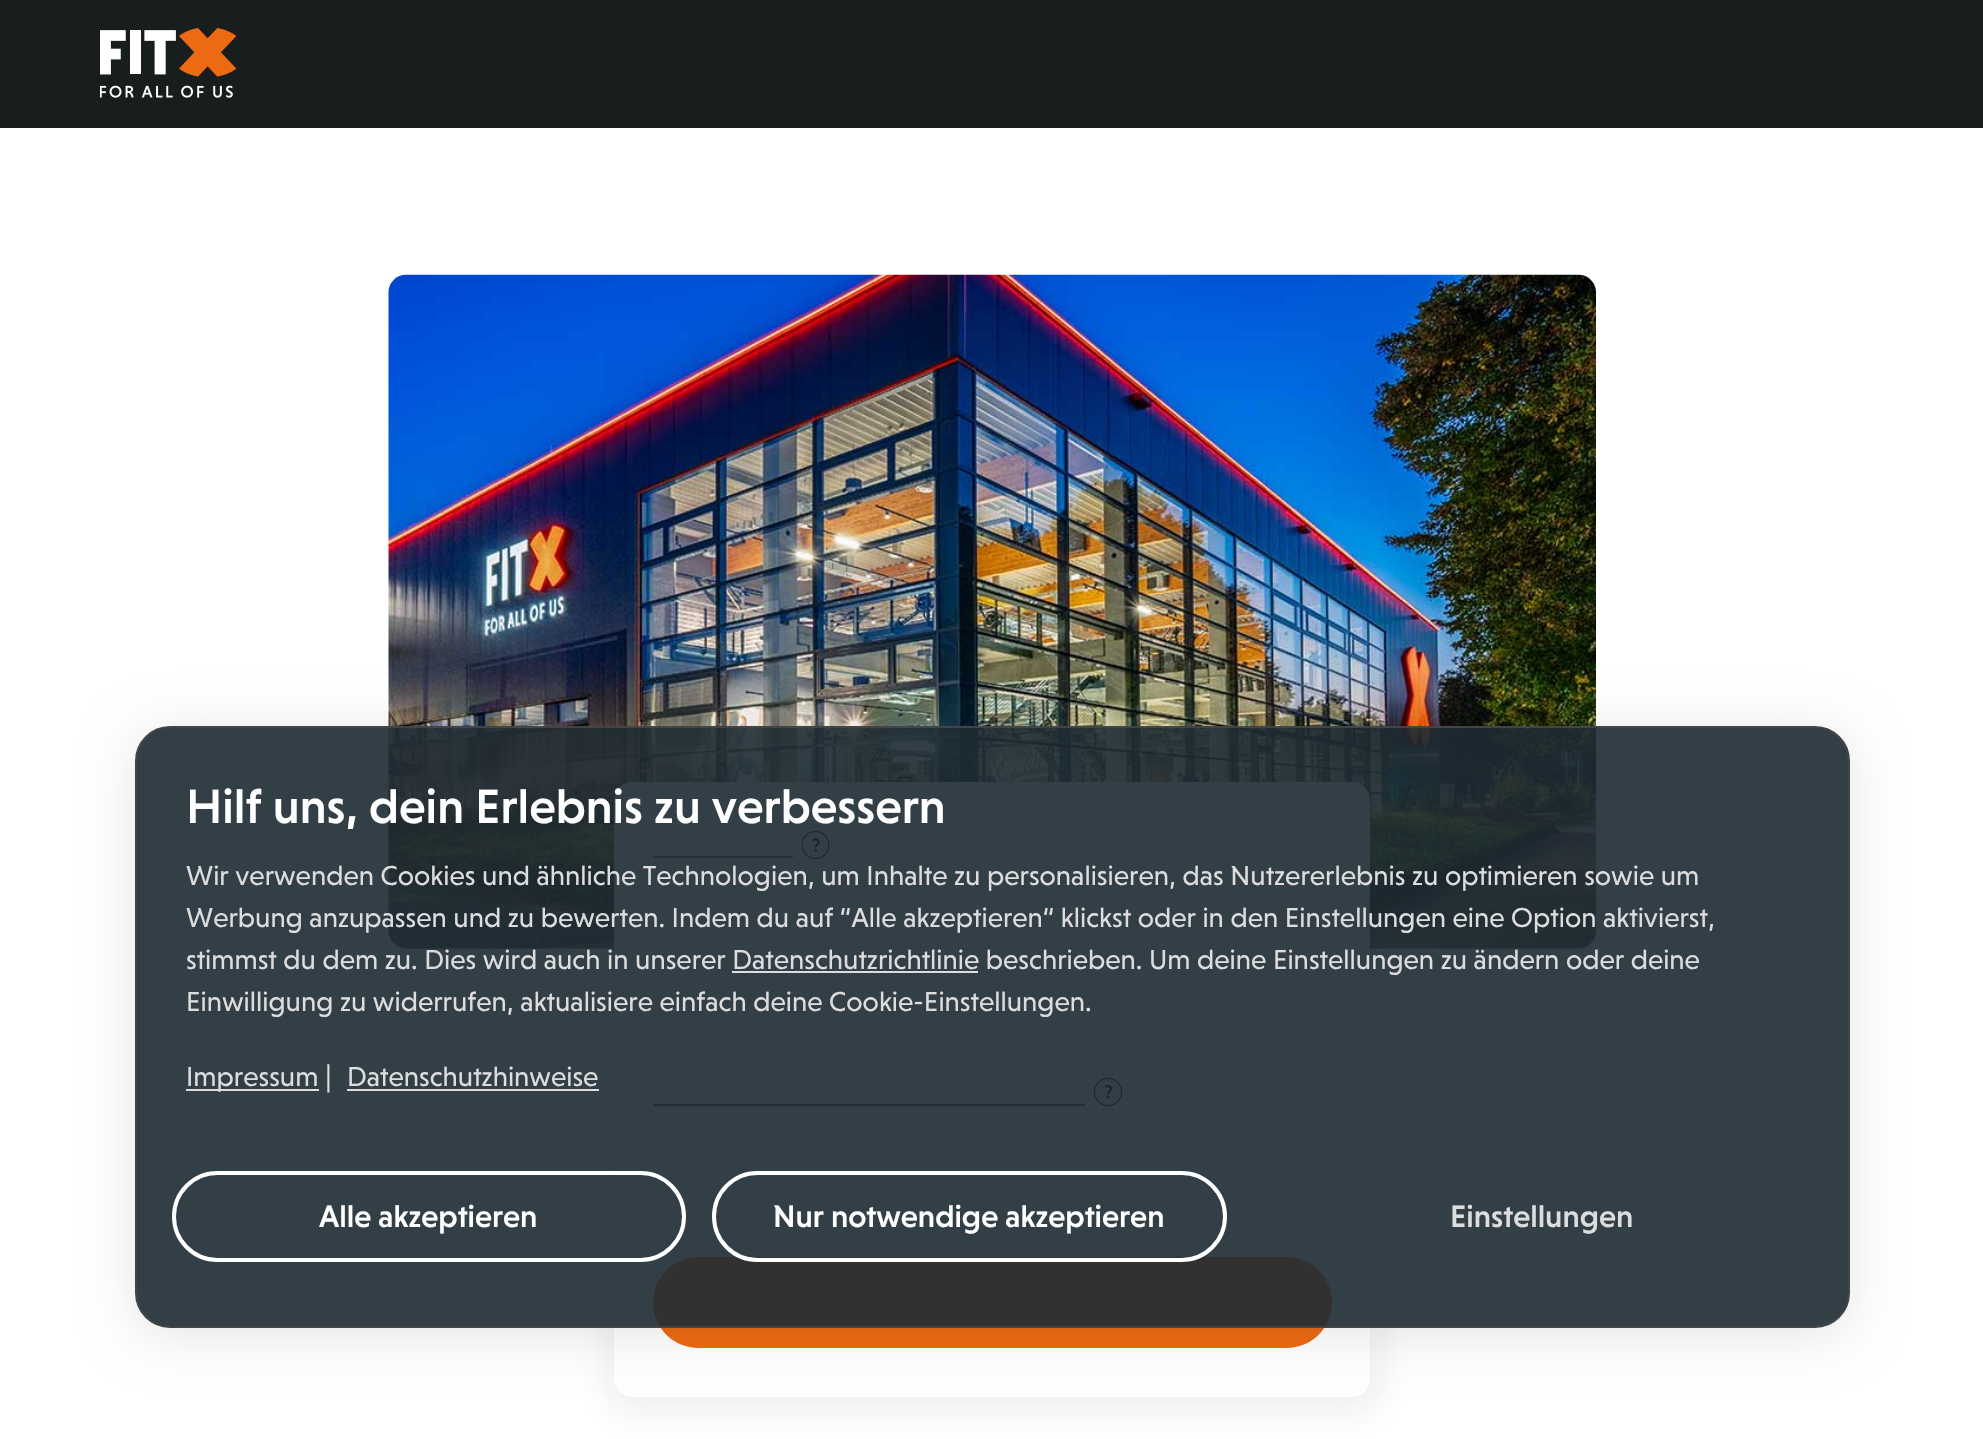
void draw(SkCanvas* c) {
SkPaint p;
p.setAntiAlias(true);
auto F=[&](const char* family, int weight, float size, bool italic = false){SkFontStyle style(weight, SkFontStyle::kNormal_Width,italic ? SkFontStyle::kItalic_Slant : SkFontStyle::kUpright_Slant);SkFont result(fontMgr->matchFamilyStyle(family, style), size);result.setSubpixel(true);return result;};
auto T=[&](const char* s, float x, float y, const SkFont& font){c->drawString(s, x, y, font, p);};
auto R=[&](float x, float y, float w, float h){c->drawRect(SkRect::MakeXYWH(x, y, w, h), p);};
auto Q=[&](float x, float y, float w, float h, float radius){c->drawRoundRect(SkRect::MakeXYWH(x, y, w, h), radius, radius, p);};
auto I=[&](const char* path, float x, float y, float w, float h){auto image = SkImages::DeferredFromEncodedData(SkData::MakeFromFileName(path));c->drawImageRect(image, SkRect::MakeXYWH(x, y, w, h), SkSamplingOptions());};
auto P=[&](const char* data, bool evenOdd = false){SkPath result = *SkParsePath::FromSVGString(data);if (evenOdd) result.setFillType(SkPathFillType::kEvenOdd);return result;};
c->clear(0xffffffff);
p.setColor(0xff181d1e);
R(0,0,1983,128);
I("1.png",100,28,136,70);
I("2.png",388,274,1209,675);
p.setColor(0x12171717);
p.setMaskFilter(SkMaskFilter::MakeBlur(kNormal_SkBlurStyle, 17.5));
c->drawRoundRect(SkRect::MakeXYWH(607,782,774,632),26,26,p);
p.setMaskFilter(nullptr);
p.setColor(0xffffffff);
Q(614,782,756,615,18);
p.setColor(0xff5d6162);
R(653,856,140,2);
I("3.png",802,831,28,28);
p.setColor(0xffeeeeee);
R(653,1045,679,2);
p.setColor(0xff444444);
R(653,1104,432,2);
I("4.png",1094,1078,28,28);
p.setColor(0xffed6a12);
Q(653,1257,679,91,45.5);
c->save();
c->clipPath(P("M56 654h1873v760h-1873zm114 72h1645c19.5 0 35 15.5 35 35v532c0 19.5-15.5 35-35 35h-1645c-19.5 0-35-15.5-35-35v-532c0-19.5 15.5-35 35-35z",true),true);
p.setColor(0x1a000000);
p.setMaskFilter(SkMaskFilter::MakeBlur(kNormal_SkBlurStyle, 26));
c->drawRoundRect(SkRect::MakeXYWH(135,733,1715,602),35,35,p);
p.setMaskFilter(nullptr);
c->restore();
p.setColor(0xe61d2a32);
c->drawRoundRect(SkRect::MakeXYWH(136,727,1713,600),34,34,p);
p.setStroke(true);
p.setStrokeWidth(2);
p.setColor(0xff444444);
c->drawRoundRect(SkRect::MakeXYWH(136,727,1713,600),34,34,p);
auto f1 = F("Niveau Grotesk",500,49);
p.setStroke(false);
p.setColor(0xffffffff);
T("Hilf uns, dein Erlebnis zu verbessern",186,823,f1);
auto f2 = F("Niveau Grotesk",400,28);
p.setColor(0xffdddddd);
T("Wir verwenden Cookies und ähnliche Technologien, um Inhalte zu personalisieren, das Nutzererlebnis zu optimieren sowie um",186,885,f2);
T("Werbung anzupassen und zu bewerten. Indem du auf “Alle akzeptieren“ klickst oder in den Einstellungen eine Option aktivierst,",186,927,f2);
T("stimmst du dem zu. Dies wird auch in unserer Datenschutzrichtlinie beschrieben. Um deine Einstellungen zu ändern oder deine",186,969,f2);
R(732,971,246,2);
T("Einwilligung zu widerrufen, aktualisiere einfach deine Cookie-Einstellungen.",186,1011,f2);
R(186,1089,133,2);
T("Impressum",186,1086,f2);
auto f3 = F("Niveau Grotesk",400,31.5);
T("|",325,1086,f3);
T("Datenschutzhinweise",347,1086,f2);
R(347,1089,252,2);
p.setStroke(true);
p.setStrokeWidth(4);
p.setColor(0xffffffff);
c->drawRoundRect(SkRect::MakeXYWH(174,1173,510,87),43.5,43.5,p);
auto f4 = F("Niveau Grotesk",500,31.5);
p.setStroke(false);
T("Alle akzeptieren",319,1227,f4);
p.setStroke(true);
c->drawRoundRect(SkRect::MakeXYWH(714,1173,511,87),43.5,43.5,p);
p.setStroke(false);
T("Nur notwendige akzeptieren",773,1227,f4);
p.setColor(0xffdddddd);
T("Einstellungen",1450,1227,f4);
}
